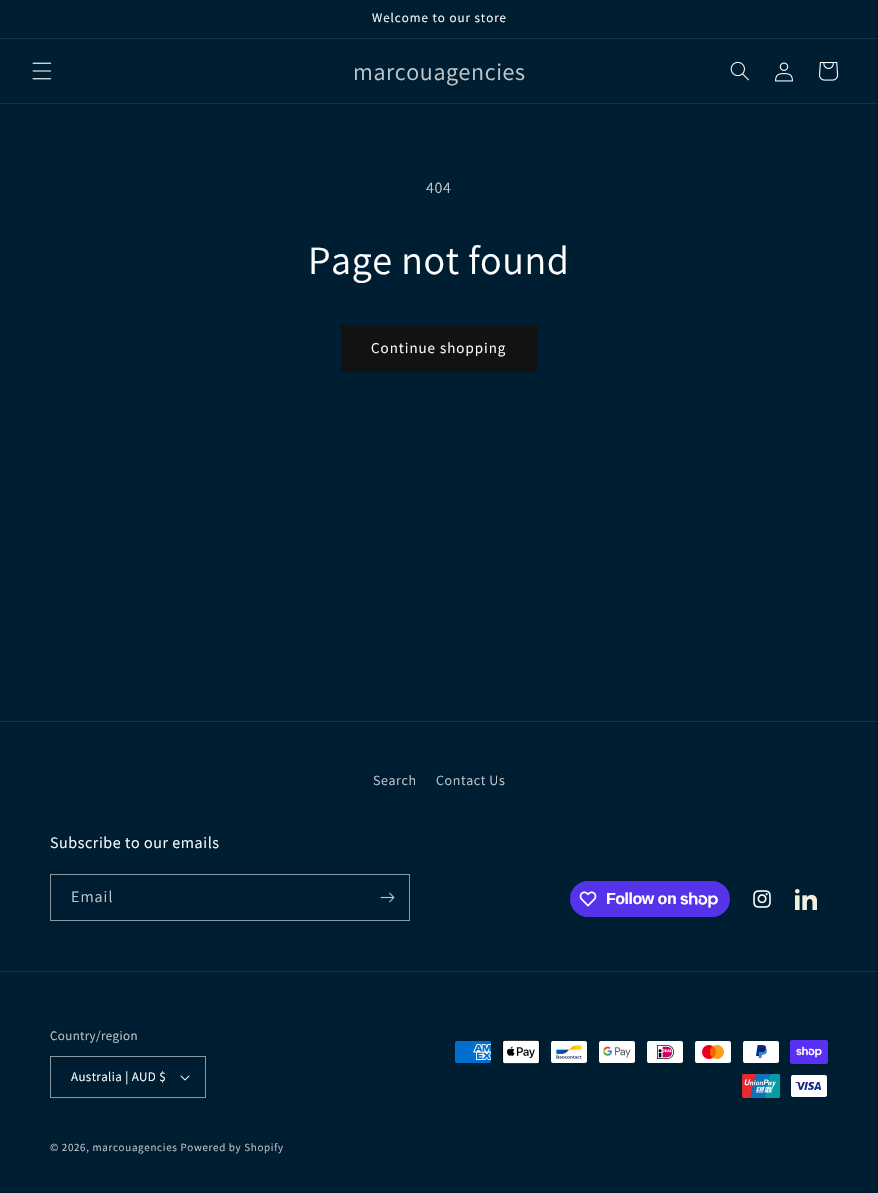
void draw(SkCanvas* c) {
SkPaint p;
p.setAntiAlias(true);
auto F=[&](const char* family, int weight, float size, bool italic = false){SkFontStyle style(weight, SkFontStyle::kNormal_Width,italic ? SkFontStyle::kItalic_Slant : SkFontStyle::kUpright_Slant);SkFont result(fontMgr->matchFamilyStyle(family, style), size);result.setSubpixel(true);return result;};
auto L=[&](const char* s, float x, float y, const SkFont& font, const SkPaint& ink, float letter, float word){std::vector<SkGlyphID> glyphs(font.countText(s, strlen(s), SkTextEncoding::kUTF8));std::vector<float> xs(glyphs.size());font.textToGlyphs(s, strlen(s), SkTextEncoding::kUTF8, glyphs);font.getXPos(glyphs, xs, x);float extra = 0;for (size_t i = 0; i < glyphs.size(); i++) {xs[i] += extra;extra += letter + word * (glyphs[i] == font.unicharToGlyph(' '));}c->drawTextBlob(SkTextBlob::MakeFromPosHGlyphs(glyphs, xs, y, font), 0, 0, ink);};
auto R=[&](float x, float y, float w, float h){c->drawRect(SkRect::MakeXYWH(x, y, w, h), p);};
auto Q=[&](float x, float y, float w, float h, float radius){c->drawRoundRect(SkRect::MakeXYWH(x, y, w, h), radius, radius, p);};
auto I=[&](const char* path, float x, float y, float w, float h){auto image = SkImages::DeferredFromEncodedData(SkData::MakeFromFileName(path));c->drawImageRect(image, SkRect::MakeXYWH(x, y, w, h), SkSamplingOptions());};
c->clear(0xff001e31);
p.setColor(0xff143041);
R(0,38,878,1);
auto f1 = F("Assistant",400,13);
p.setColor(0xffffffff);
L("Welcome to our store",372,22,f1,p,1,0);
p.setColor(0xff143041);
R(0,103,878,1);
I("1.png",32,62,20,18);
auto f2 = F("Assistant",400,24);
p.setColor(0xffbfc7cc);
L("marcouagencies",353,80,f2,p,.6,0);
I("2.png",730,61,19,20);
I("3.png",775,62,18,20);
I("4.png",819,62,20,19);
auto f3 = F("Assistant",400,16);
L("404",426,193,f3,p,.6,0);
auto f4 = F("Assistant",400,40);
p.setColor(0xffffffff);
L("Page not found",308,274,f4,p,.6,0);
p.setColor(0xff121212);
R(341,325,196,47);
auto f5 = F("Assistant",400,15);
p.setColor(0xffffffff);
L("Continue shopping",371,353,f5,p,1,0);
p.setColor(0xff143041);
R(0,721,878,1);
auto f6 = F("Assistant",400,14);
p.setColor(0xffbfc7cc);
L("Search",373,785,f6,p,.6,0);
L("Contact Us",436,785,f6,p,.6,0);
p.setColor(0xffffffff);
L("Subscribe to our emails",50,848,f3,p,.6,0);
p.setStroke(true);
p.setStrokeWidth(1);
p.setColor(0xff8c9aa2);
c->drawRect(SkRect::MakeXYWH(50.5,874.5,359,46),p);
p.setStroke(false);
p.setColor(0xffbfc7cc);
L("Email",71,902,f3,p,1,0);
I("5.png",380,892,15,11);
p.setColor(0xff5433eb);
Q(570,881,160,36,18);
I("6.png",579,891,18,16);
auto f7 = F("Liberation Sans",700,16);
p.setColor(0xffffffff);
L("Follow on",606,904,f7,p,-.5,0);
I("7.png",680,892,38,16);
I("8.png",753,890,18,18);
I("9.png",795,888,22,22);
p.setColor(0xff143041);
R(0,971,878,1);
p.setColor(0xffbfc7cc);
L("Country/region",50,1040,f1,p,.4,0);
I("10.png",180,1075,10,6);
p.setStroke(true);
p.setColor(0xff8c9aa2);
c->drawRect(SkRect::MakeXYWH(50.5,1056.5,155,41),p);
p.setStroke(false);
p.setColor(0xffffffff);
L("Australia | AUD $",71,1081,f1,p,.4,0);
I("11.png",455,1041,36,22);
I("12.png",502,1040,38,24);
I("13.png",551,1041,36,22);
I("14.png",599,1041,36,22);
I("15.png",647,1041,36,22);
I("16.png",695,1041,36,22);
I("17.png",743,1041,36,22);
I("18.png",790,1040,38,24);
I("19.png",742,1074,38,24);
I("20.png",791,1075,36,22);
auto f8 = F("Assistant",400,11);
p.setColor(0xffbfc7cc);
L("© 2026, marcouagencies Powered by Shopify",50,1151,f8,p,.7,0);
}
